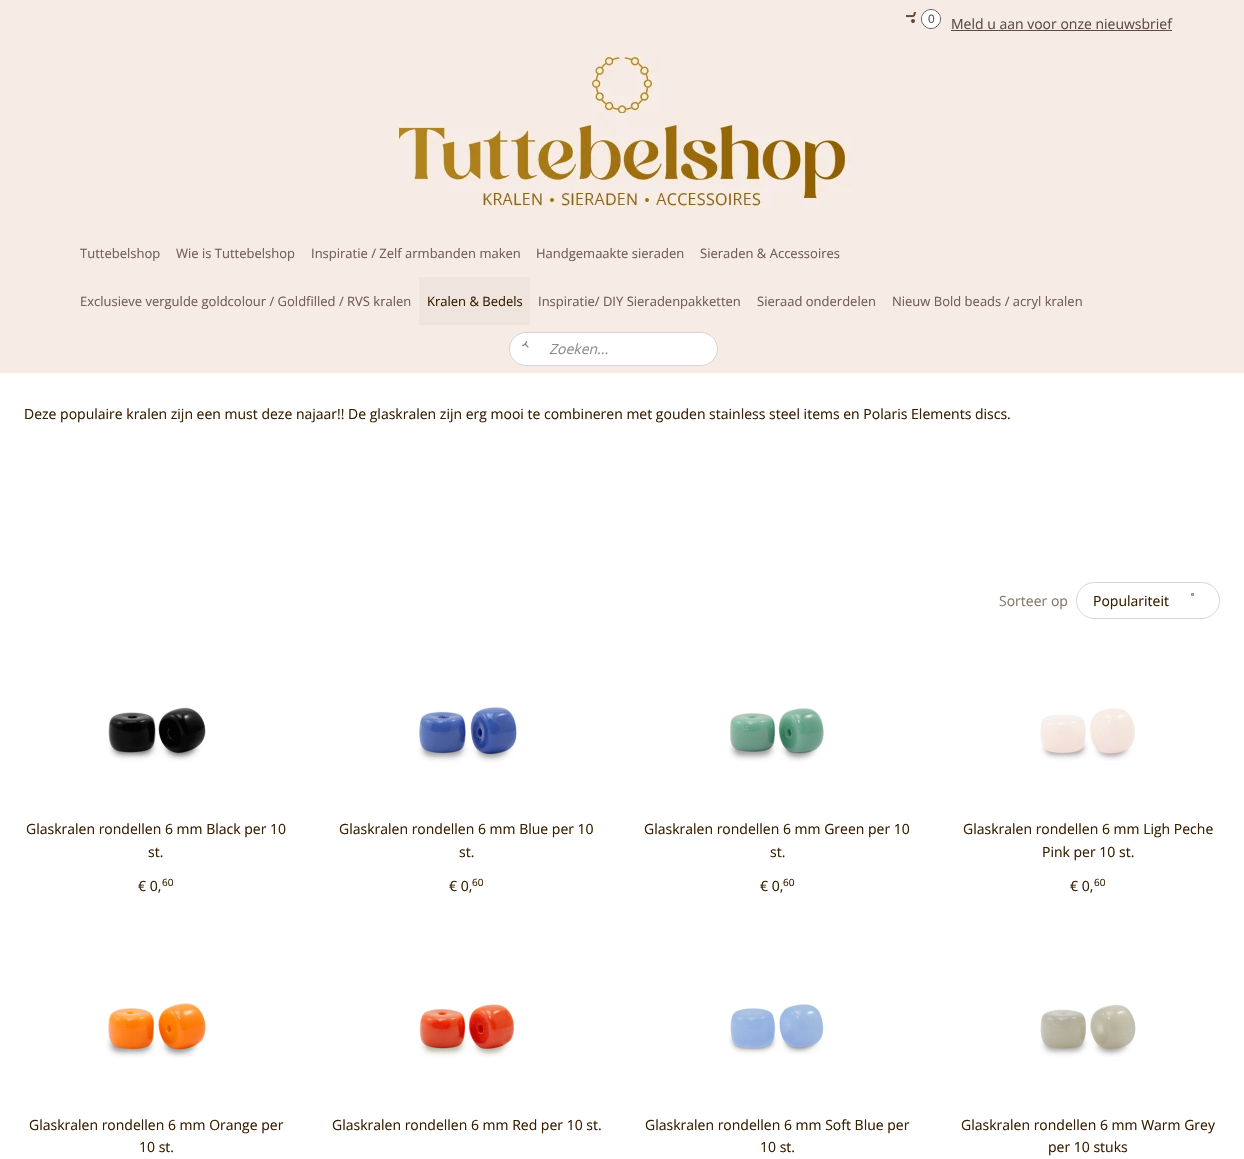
void draw(SkCanvas* c) {
SkPaint p;
p.setAntiAlias(true);
auto F=[&](const char* family, int weight, float size, bool italic = false){SkFontStyle style(weight, SkFontStyle::kNormal_Width,italic ? SkFontStyle::kItalic_Slant : SkFontStyle::kUpright_Slant);SkFont result(fontMgr->matchFamilyStyle(family, style), size);result.setSubpixel(true);return result;};
auto T=[&](const char* s, float x, float y, const SkFont& font){c->drawString(s, x, y, font, p);};
auto R=[&](float x, float y, float w, float h){c->drawRect(SkRect::MakeXYWH(x, y, w, h), p);};
auto I=[&](const char* path, float x, float y, float w, float h){auto image = SkImages::DeferredFromEncodedData(SkData::MakeFromFileName(path));c->drawImageRect(image, SkRect::MakeXYWH(x, y, w, h), SkSamplingOptions());};
c->clear(0xffffffff);
p.setColor(0xfff6ece5);
R(0,0,1244,373);
I("1.png",906,12,10,11);
p.setStroke(true);
p.setStrokeWidth(1);
p.setColor(0xff575b62);
c->drawCircle(931,19,9.5,p);
p.setStroke(false);
p.setColor(0xffffffff);
c->drawCircle(931,19,9,p);
auto f1 = F("Liberation Sans",400,12);
p.setColor(0xff575b62);
T("0",928,23,f1);
auto f2 = F("Open Sans",400,14);
p.setColor(0xff5d4a42);
T("Meld u aan voor onze nieuwsbrief",951,29,f2);
R(951,30,221,1);
I("2.png",396,55,456,153);
auto f3 = F("Open Sans",400,13);
p.setColor(0xff735d54);
T("Tuttebelshop",80,258,f3);
T("Wie is Tuttebelshop",176,258,f3);
T("Inspiratie / Zelf armbanden maken",311,258,f3);
T("Handgemaakte sieraden",536,258,f3);
T("Sieraden & Accessoires",700,258,f3);
T("Exclusieve vergulde goldcolour / Goldfilled / RVS kralen",80,306,f3);
p.setColor(0xfff0e5de);
R(419,277,111,48);
p.setColor(0xff371e00);
T("Kralen & Bedels",427,306,f3);
p.setColor(0xff735d54);
T("Inspiratie/ DIY Sieradenpakketten",538,306,f3);
T("Sieraad onderdelen",757,306,f3);
T("Nieuw Bold beads / acryl kralen",892,306,f3);
p.setColor(0xffffffff);
c->drawRoundRect(SkRect::MakeXYWH(509.5,332.5,208,33),16.5,16.5,p);
p.setStroke(true);
p.setColor(0xffd3d5d9);
c->drawRoundRect(SkRect::MakeXYWH(509.5,332.5,208,33),16.5,16.5,p);
I("3.png",522,341,7,7);
auto f4 = F("Open Sans",400,14,true);
p.setStroke(false);
p.setColor(0xff898c91);
T("Zoeken...",549,354,f4);
p.setColor(0xff371e00);
T("Deze populaire kralen zijn een must deze najaar!! De glaskralen zijn erg mooi te combineren met gouden stainless steel items en Polaris Elements discs.",24,419,f2);
p.setColor(0xff877866);
T("Sorteer op",999,606,f2);
p.setStroke(true);
p.setColor(0xffd6d6d6);
c->drawRoundRect(SkRect::MakeXYWH(1076.5,582.5,143,36),18,18,p);
p.setStroke(false);
p.setColor(0xffa59a8c);
R(1191,593,3,3);
p.setColor(0xff371e00);
T("Populariteit",1093,606,f2);
I("4.png",108,707,98,54);
T("Glaskralen rondellen 6 mm Black per 10",26,834,f2);
T("st.",148,857,f2);
T("€ 0,",138,891,f2);
auto f5 = F("Open Sans",400,10);
T("60",162,886,f5);
I("5.png",418,707,99,56);
T("Glaskralen rondellen 6 mm Blue per 10",339,834,f2);
T("st.",459,857,f2);
T("€ 0,",449,891,f2);
T("60",472,886,f5);
I("6.png",728,708,96,54);
T("Glaskralen rondellen 6 mm Green per 10",644,834,f2);
T("st.",770,857,f2);
T("€ 0,",760,891,f2);
T("60",783,886,f5);
I("7.png",1040,708,95,53);
T("Glaskralen rondellen 6 mm Ligh Peche",963,834,f2);
T("Pink per 10 st.",1042,857,f2);
T("€ 0,",1070,891,f2);
T("60",1094,886,f5);
I("8.png",106,1003,100,55);
T("Glaskralen rondellen 6 mm Orange per",29,1130,f2);
T("10 st.",139,1152,f2);
I("9.png",419,1004,97,54);
T("Glaskralen rondellen 6 mm Red per 10 st.",332,1130,f2);
I("10.png",729,1002,95,53);
T("Glaskralen rondellen 6 mm Soft Blue per",645,1130,f2);
T("10 st.",760,1152,f2);
I("11.png",1040,1003,96,54);
T("Glaskralen rondellen 6 mm Warm Grey",961,1130,f2);
T("per 10 stuks",1048,1152,f2);
}
